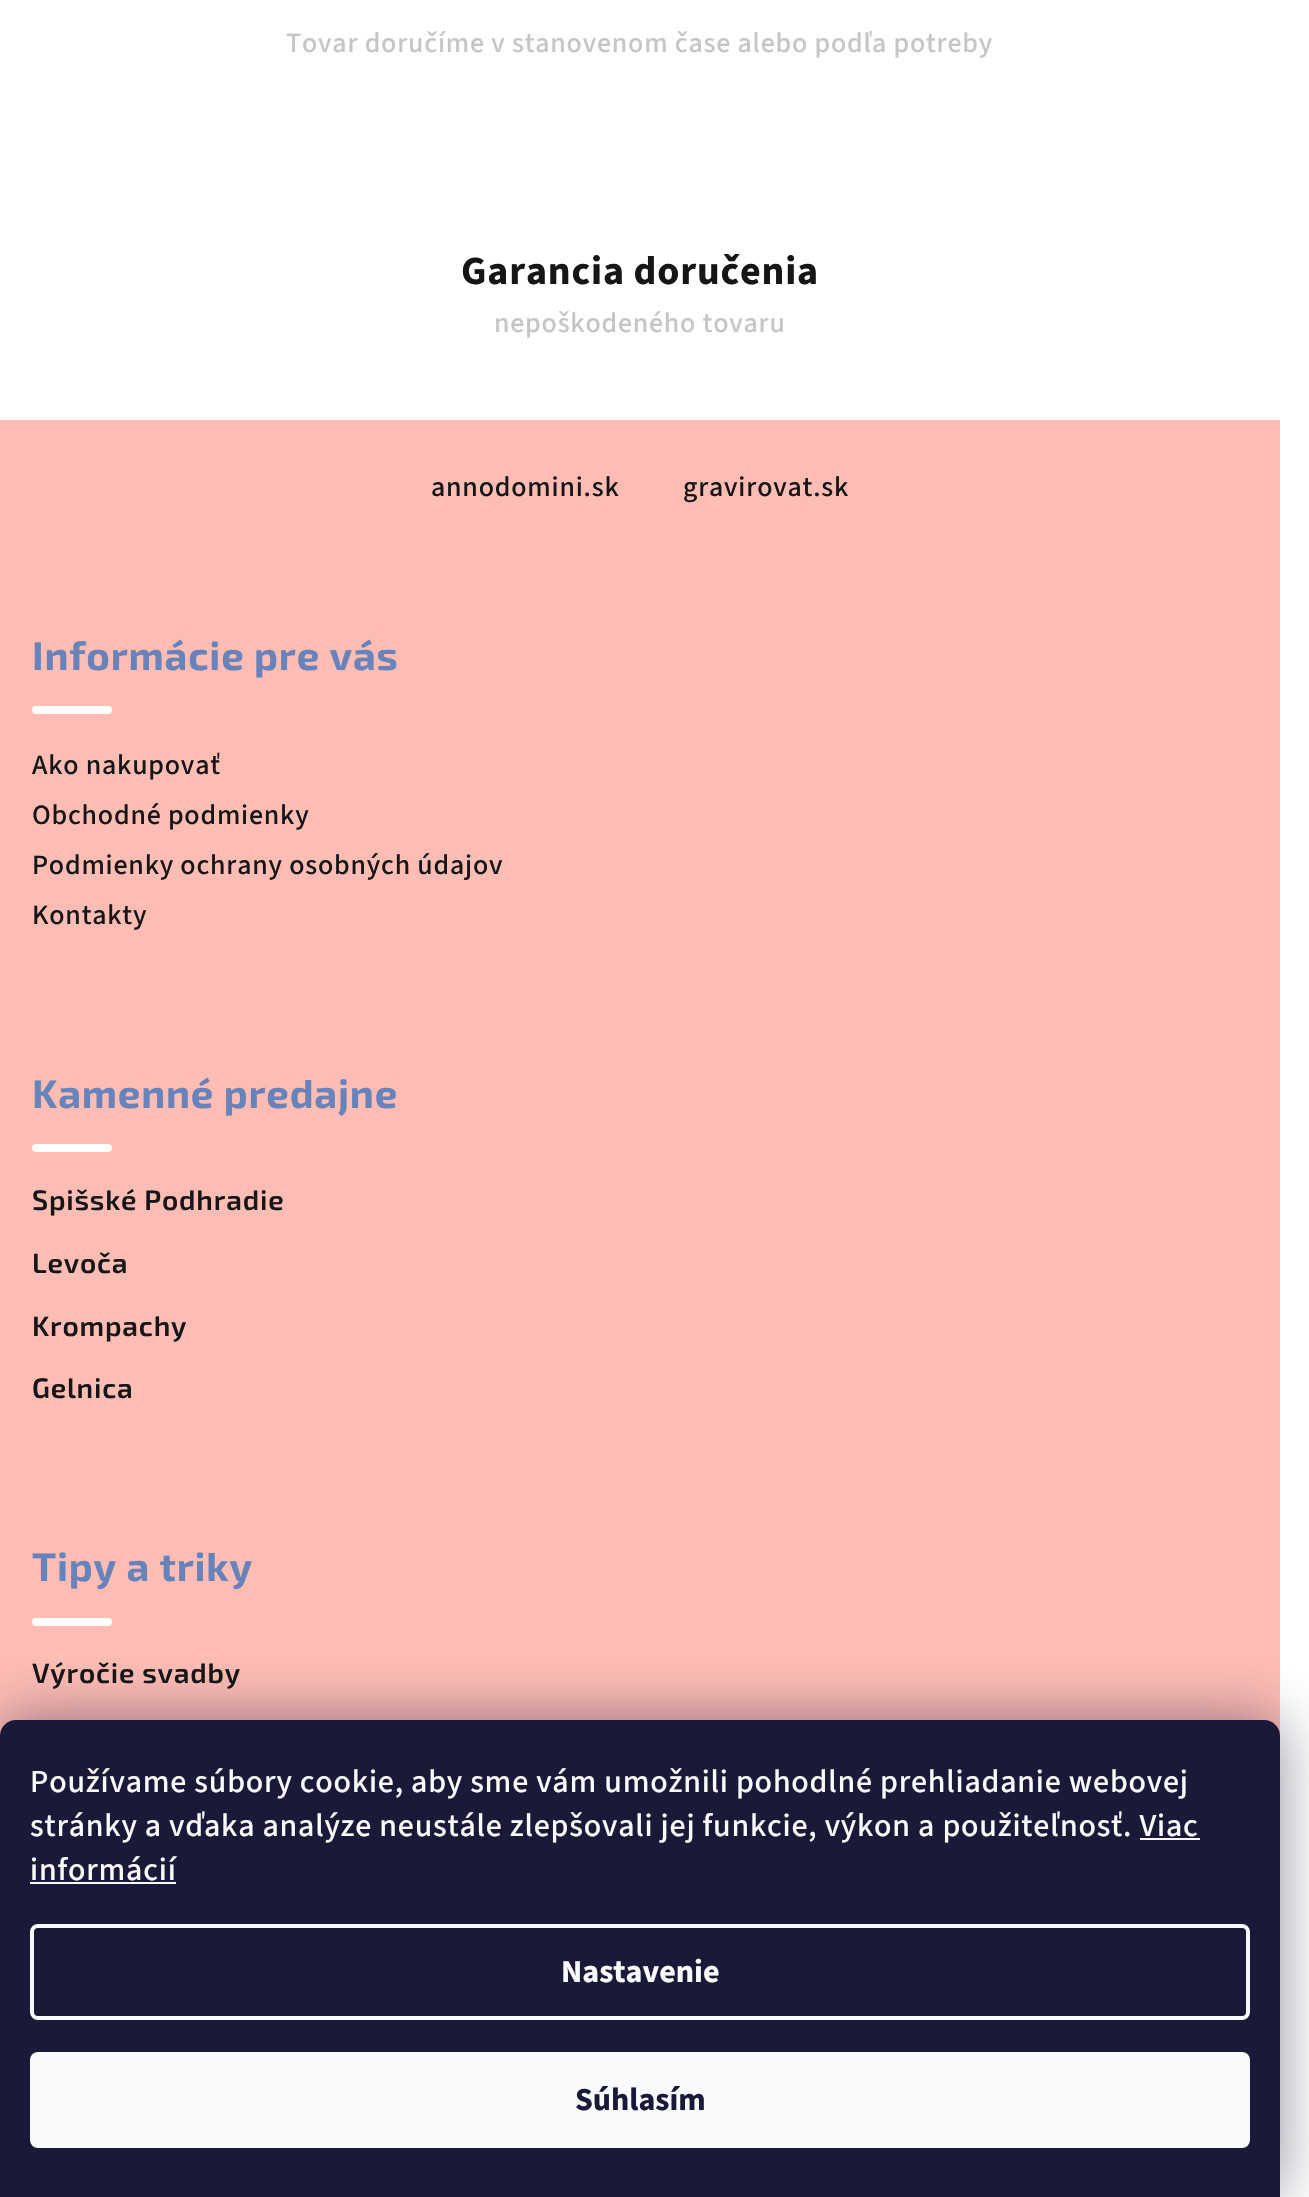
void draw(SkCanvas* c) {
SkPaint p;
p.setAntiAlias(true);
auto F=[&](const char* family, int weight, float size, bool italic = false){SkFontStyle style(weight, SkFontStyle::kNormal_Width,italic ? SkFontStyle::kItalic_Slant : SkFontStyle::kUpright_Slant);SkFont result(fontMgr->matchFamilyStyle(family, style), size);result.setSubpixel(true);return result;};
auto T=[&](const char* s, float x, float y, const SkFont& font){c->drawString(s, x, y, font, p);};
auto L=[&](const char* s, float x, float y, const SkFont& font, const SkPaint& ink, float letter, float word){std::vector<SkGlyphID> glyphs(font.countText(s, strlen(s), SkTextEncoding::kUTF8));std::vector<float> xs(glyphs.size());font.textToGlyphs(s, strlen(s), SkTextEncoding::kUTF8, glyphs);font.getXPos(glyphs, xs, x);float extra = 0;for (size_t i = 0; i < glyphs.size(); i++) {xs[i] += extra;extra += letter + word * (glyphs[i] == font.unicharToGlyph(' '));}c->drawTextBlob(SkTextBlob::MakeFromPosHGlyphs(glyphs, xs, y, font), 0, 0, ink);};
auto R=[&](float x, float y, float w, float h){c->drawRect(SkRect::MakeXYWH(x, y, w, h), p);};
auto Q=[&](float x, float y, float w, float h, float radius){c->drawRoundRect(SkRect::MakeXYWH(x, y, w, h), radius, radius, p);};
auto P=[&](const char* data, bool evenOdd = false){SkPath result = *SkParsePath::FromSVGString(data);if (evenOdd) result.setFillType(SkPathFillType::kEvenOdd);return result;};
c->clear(0xffffffff);
auto f1 = F("Source Sans 3",500,28);
p.setColor(0xffc5c5c5);
L("Tovar doručíme v stanovenom čase alebo podľa potreby",286,52,f1,p,.8,0);
auto f2 = F("Source Sans 3",700,40);
p.setColor(0xff161616);
L("Garancia doručenia",461,284,f2,p,.8,0);
p.setColor(0xffc5c5c5);
L("nepoškodeného tovaru",494,332,f1,p,.8,0);
p.setColor(0xfffdbcb4);
R(0,420,1280,1316);
p.setColor(0xff161616);
L("annodomini.sk",431,496,f1,p,.8,0);
L("gravirovat.sk",683,496,f1,p,.8,0);
auto f3 = F("Exo 2",700,40);
p.setColor(0xff6883ba);
L("Informácie pre vás",32,670,f3,p,.8,0);
p.setColor(0xffffffff);
Q(32,706,80,8,4);
p.setColor(0xff161616);
L("Ako nakupovať",32,774,f1,p,.8,0);
L("Obchodné podmienky",32,824,f1,p,.8,0);
L("Podmienky ochrany osobných údajov",32,874,f1,p,.8,0);
L("Kontakty",32,924,f1,p,.8,0);
p.setColor(0xff6883ba);
L("Kamenné predajne",32,1108,f3,p,.8,0);
p.setColor(0xffffffff);
Q(32,1144,80,8,4);
auto f4 = F("Exo 2",600,28);
p.setColor(0xff161616);
L("Spišské Podhradie",32,1210,f4,p,.8,0);
L("Levoča",32,1273,f4,p,.8,0);
L("Krompachy",32,1336,f4,p,.8,0);
L("Gelnica",32,1398,f4,p,.8,0);
p.setColor(0xff6883ba);
L("Tipy a triky",32,1581,f3,p,.8,0);
p.setColor(0xffffffff);
Q(32,1618,80,8,4);
p.setColor(0xff161616);
L("Výročie svadby",32,1683,f4,p,.8,0);
p.setColor(0x801b1939);
p.setMaskFilter(SkMaskFilter::MakeBlur(kNormal_SkBlurStyle, 30));
c->drawRoundRect(SkRect::MakeXYWH(0,1720,1280,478),16,16,p);
p.setMaskFilter(nullptr);
p.setColor(0xff1a1937);
c->drawPath(P("M16 1720h1248c9 0 16 7 16 16v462h-1280v-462c0-9 7-16 16-16z"),p);
auto f5 = F("Source Sans 3",500,32);
p.setColor(0xfff8fafb);
L("Používame súbory cookie, aby sme vám umožnili pohodlné prehliadanie webovej",30,1792,f5,p,.8,0);
L("stránky a vďaka analýze neustále zlepšovali jej funkcie, výkon a použiteľnosť. Viac",30,1836,f5,p,.8,0);
L("informácií",30,1880,f5,p,.8,0);
R(1140,1838,60,2);
R(30,1882,146,2);
p.setStroke(true);
p.setStrokeWidth(4);
c->drawRoundRect(SkRect::MakeXYWH(32,1926,1216,92),6,6,p);
auto f6 = F("Source Sans 3",700,32);
p.setStroke(false);
T("Nastavenie",561,1982,f6);
Q(30,2052,1220,96,8);
p.setColor(0xff1a1937);
T("Súhlasím",575,2110,f6);
}
